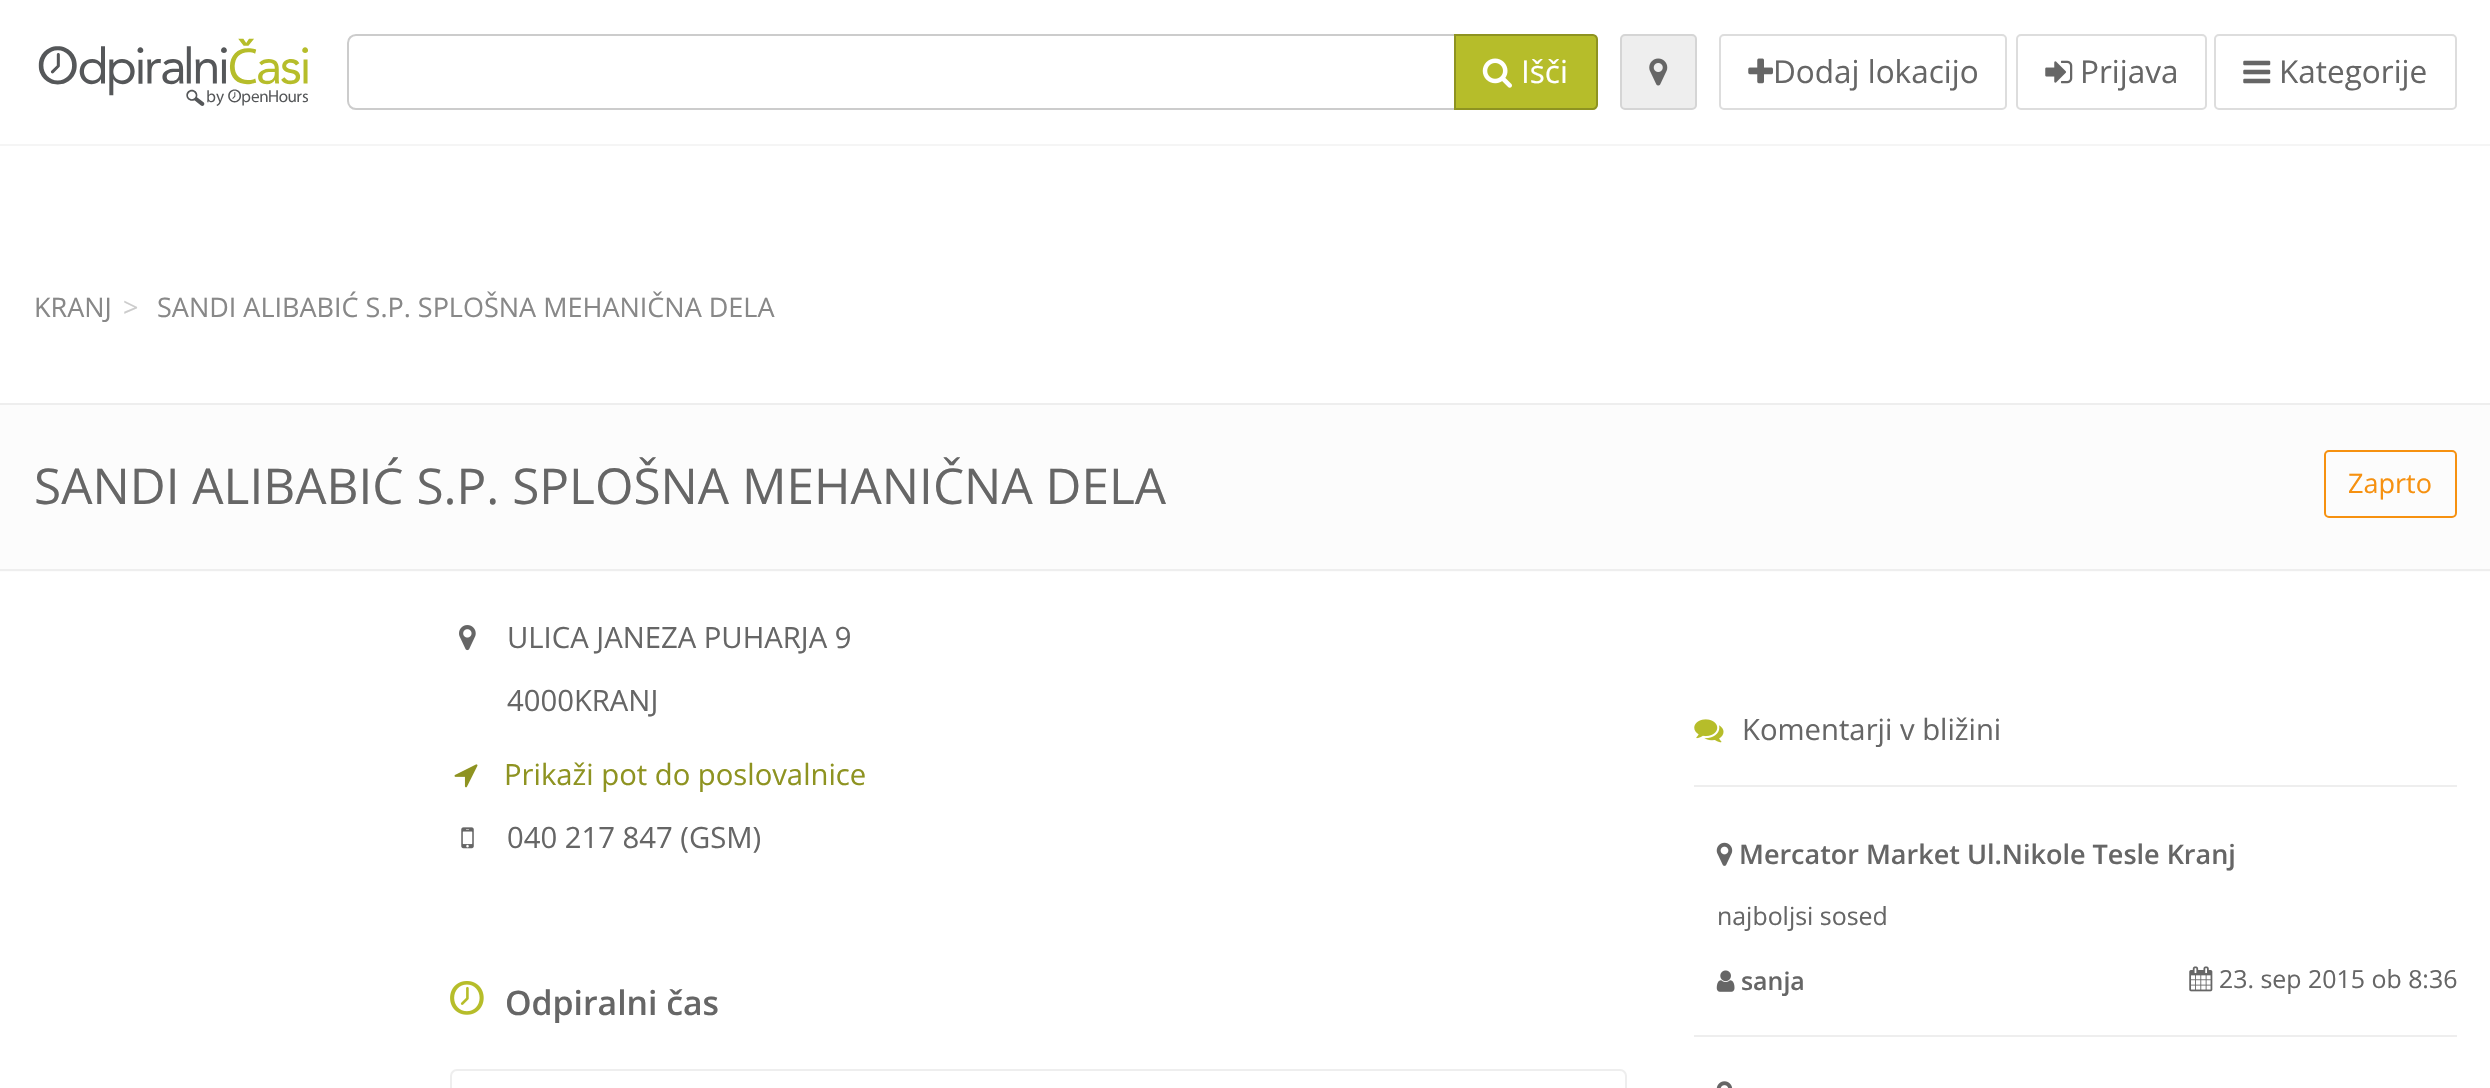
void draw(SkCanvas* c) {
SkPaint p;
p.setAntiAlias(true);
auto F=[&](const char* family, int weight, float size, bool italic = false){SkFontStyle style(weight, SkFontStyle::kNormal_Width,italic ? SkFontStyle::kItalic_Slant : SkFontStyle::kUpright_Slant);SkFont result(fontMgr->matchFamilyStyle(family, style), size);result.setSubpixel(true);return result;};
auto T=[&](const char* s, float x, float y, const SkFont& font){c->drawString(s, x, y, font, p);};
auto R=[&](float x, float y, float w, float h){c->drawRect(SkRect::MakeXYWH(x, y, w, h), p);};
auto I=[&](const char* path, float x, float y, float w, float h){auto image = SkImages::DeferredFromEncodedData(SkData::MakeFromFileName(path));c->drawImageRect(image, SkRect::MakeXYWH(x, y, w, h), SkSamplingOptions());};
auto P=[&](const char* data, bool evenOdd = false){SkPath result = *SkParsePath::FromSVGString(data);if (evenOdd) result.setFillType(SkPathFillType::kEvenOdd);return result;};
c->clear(0xffffffff);
p.setColor(0xfff5f5f5);
R(0,144,2490,2);
I("1.png",38,38,270,68);
p.setStroke(true);
p.setStrokeWidth(2);
p.setColor(0xffcccccc);
c->drawPath(P("M356 35h1099v74h-1099c-4.5 0-8-3.5-8-8v-58c0-4.5 3.5-8 8-8z"),p);
p.setStroke(false);
p.setColor(0xffb6bd2a);
c->drawPath(P("M1455 35h138c2 0 4 2 4 4v66c0 2-2 4-4 4h-138z"),p);
p.setStroke(true);
p.setColor(0xff8e9321);
c->drawPath(P("M1455 35h138c2 0 4 2 4 4v66c0 2-2 4-4 4h-138z"),p);
I("2.png",1482,58,30,30);
auto f1 = F("Open Sans",400,31.5);
p.setStroke(false);
p.setColor(0xffffffff);
T("Išči",1521,83,f1);
p.setColor(0xffeeeeee);
c->drawRoundRect(SkRect::MakeXYWH(1621,35,75,74),4,4,p);
p.setStroke(true);
p.setColor(0xffd5d5d5);
c->drawRoundRect(SkRect::MakeXYWH(1621,35,75,74),4,4,p);
I("3.png",1649,58,19,28);
p.setColor(0xffdddddd);
c->drawRoundRect(SkRect::MakeXYWH(1720,35,286,74),4,4,p);
I("4.png",1748,58,25,26);
p.setStroke(false);
p.setColor(0xff666666);
T("Dodaj lokacijo",1773,83,f1);
p.setStroke(true);
p.setColor(0xffdddddd);
c->drawRoundRect(SkRect::MakeXYWH(2017,35,189,74),4,4,p);
I("5.png",2045,60,28,24);
p.setStroke(false);
p.setColor(0xff666666);
T("Prijava",2080,83,f1);
p.setStroke(true);
p.setColor(0xffdddddd);
c->drawRoundRect(SkRect::MakeXYWH(2215,35,241,74),4,4,p);
I("6.png",2243,60,28,24);
p.setStroke(false);
p.setColor(0xff666666);
T("Kategorije",2279,83,f1);
auto f2 = F("Open Sans",400,27);
p.setColor(0xff888888);
T("KRANJ",34,317,f2);
p.setColor(0xffcccccc);
T(">",123,317,f2);
p.setColor(0xff888888);
T("SANDI ALIBABIĆ S.P. SPLOŠNA MEHANIČNA DELA",157,317,f2);
p.setColor(0xfffcfcfc);
R(0,405,2490,167);
p.setColor(0xffeeeeee);
R(0,403,2490,2);
R(0,569,2490,2);
auto f3 = F("Open Sans",400,49.5);
p.setColor(0xff666666);
T("SANDI ALIBABIĆ S.P. SPLOŠNA MEHANIČNA DELA",34,504,f3);
p.setStroke(true);
p.setColor(0xfff69110);
c->drawRoundRect(SkRect::MakeXYWH(2325,451,131,66),4,4,p);
p.setStroke(false);
T("Zaprto",2348,493,f2);
I("7.png",459,625,17,26);
auto f4 = F("Open Sans",400,29.25);
p.setColor(0xff666666);
T("ULICA JANEZA PUHARJA 9",507,648,f4);
T("4000KRANJ",507,711,f4);
I("8.png",454,764,24,24);
p.setColor(0xff8e9321);
T("Prikaži pot do poslovalnice",504,785,f4);
I("9.png",461,827,13,22);
p.setColor(0xff666666);
T("040 217 847 (GSM)",507,848,f4);
I("10.png",450,981,34,34);
auto f5 = F("Open Sans",600,33.75);
T("Odpiralni čas",505,1015,f5);
p.setStroke(true);
p.setColor(0xffeeeeee);
c->drawRoundRect(SkRect::MakeXYWH(451,1070,1175,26),6,6,p);
p.setStroke(false);
R(1694,785,763,2);
I("11.png",1694,719,30,24);
p.setColor(0xff666666);
T("Komentarji v bližini",1742,740,f4);
p.setColor(0xffeeeeee);
R(1694,1035,763,2);
I("12.png",1716,842,17,24);
auto f6 = F("Open Sans",600,27);
p.setColor(0xff666666);
T("Mercator Market Ul.Nikole Tesle Kranj",1739,864,f6);
auto f7 = F("Open Sans",400,24.9);
T("najboljsi sosed",1717,925,f7);
I("13.png",1716,970,19,22);
auto f8 = F("Open Sans",600,24.9);
T("sanja",1741,990,f8);
I("14.png",2189,966,24,26);
T("23. sep 2015 ob 8:36",2219,988,f7);
I("15.png",1716,1081,17,7);
}
